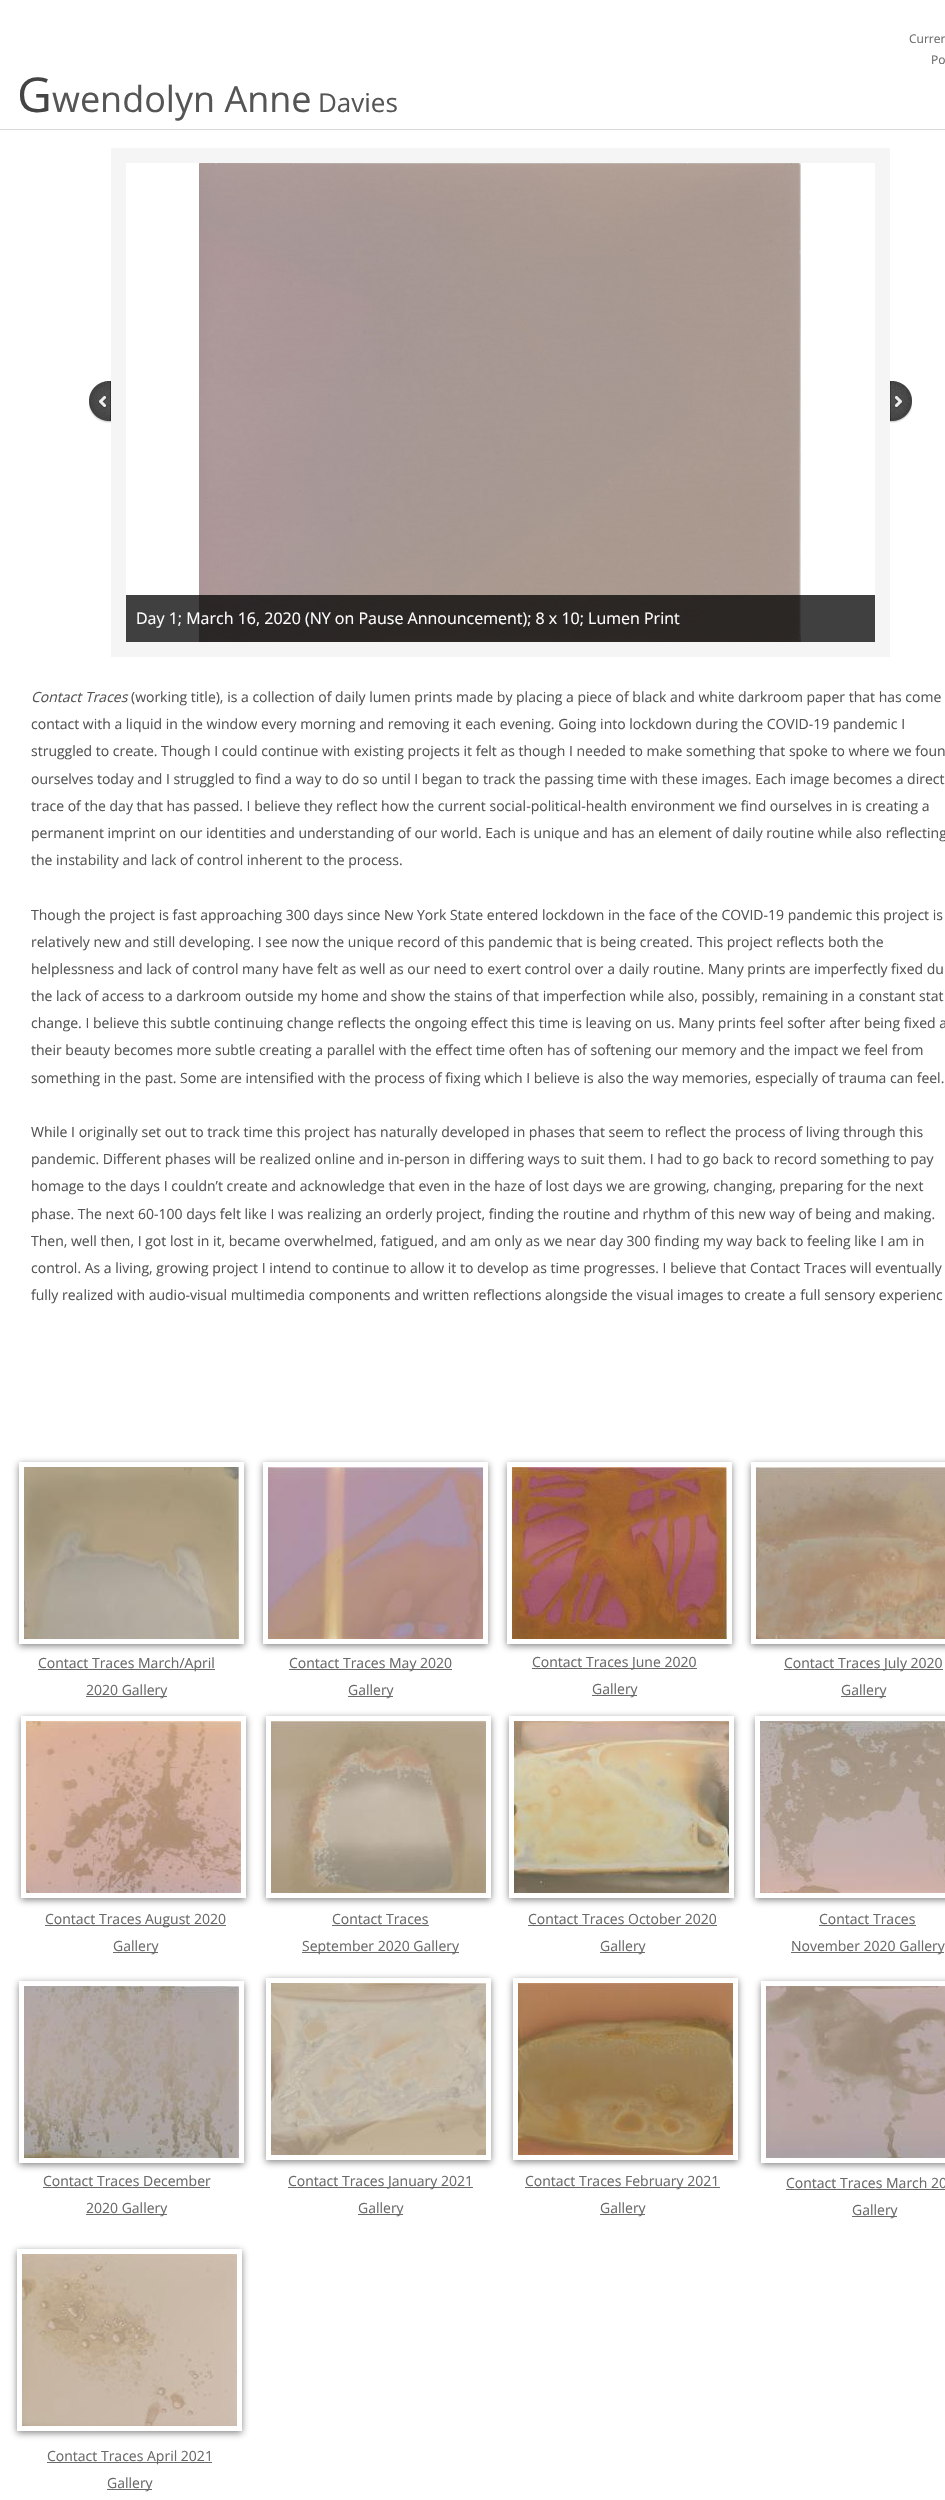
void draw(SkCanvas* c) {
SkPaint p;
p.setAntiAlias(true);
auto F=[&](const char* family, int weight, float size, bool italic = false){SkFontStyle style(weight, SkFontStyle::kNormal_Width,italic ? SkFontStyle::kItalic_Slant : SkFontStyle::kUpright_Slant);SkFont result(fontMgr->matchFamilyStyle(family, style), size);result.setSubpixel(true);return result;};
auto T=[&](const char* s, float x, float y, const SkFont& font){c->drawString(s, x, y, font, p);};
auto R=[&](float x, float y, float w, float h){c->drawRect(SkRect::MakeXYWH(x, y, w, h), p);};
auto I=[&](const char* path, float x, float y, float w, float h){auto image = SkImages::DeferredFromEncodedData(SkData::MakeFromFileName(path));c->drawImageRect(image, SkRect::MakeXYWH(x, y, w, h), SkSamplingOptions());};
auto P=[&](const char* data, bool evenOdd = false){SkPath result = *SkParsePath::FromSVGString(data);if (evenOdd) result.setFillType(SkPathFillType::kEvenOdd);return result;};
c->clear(0xffffffff);
auto f1 = F("Open Sans",400,12);
p.setColor(0xff6a6a6a);
T("Curren",909,43,f1);
T("Po",931,64,f1);
auto f2 = F("Open Sans",400,48);
p.setColor(0xff444444);
T("G",17,112,f2);
auto f3 = F("Open Sans",400,36);
p.setColor(0xff555555);
T("wendolyn Anne",52,112,f3);
auto f4 = F("Open Sans",400,26);
T("Davies",318,112,f4);
p.setColor(0xffdadada);
R(0,129,945,1);
I("1.png",89,381,22,42);
I("2.png",890,381,22,42);
p.setStroke(true);
p.setStrokeWidth(15);
p.setColor(0xfff5f5f5);
c->drawRect(SkRect::MakeXYWH(118.5,155.5,764,494),p);
I("3.png",199,163,602,479);
p.setStroke(false);
p.setColor(0xbf000000);
R(126,595,749,47);
auto f5 = F("Open Sans",400,16);
p.setColor(0xffffffff);
T("Day 1; March 16, 2020 (NY on Pause Announcement); 8 x 10; Lumen Print",136,624,f5);
auto f6 = F("Open Sans",400,14,true);
p.setColor(0xff555555);
T("Contact Traces",31,702,f6);
auto f7 = F("Open Sans",400,14);
T("(working title), is a collection of daily lumen prints made by placing a piece of black and white darkroom paper that has come",131,702,f7);
T("contact with a liquid in the window every morning and removing it each evening. Going into lockdown during the COVID-19 pandemic I",31,729,f7);
T("struggled to create. Though I could continue with existing projects it felt as though I needed to make something that spoke to where we foun",31,756,f7);
T("ourselves today and I struggled to find a way to do so until I began to track the passing time with these images. Each image becomes a direct",31,784,f7);
T("trace of the day that has passed. I believe they reflect how the current social-political-health environment we find ourselves in is creating a",31,811,f7);
T("permanent imprint on our identities and understanding of our world. Each is unique and has an element of daily routine while also reflecting",31,838,f7);
T("the instability and lack of control inherent to the process.",31,865,f7);
T("Though the project is fast approaching 300 days since New York State entered lockdown in the face of the COVID-19 pandemic this project is",31,920,f7);
T("relatively new and still developing. I see now the unique record of this pandemic that is being created. This project reflects both the",31,947,f7);
T("helplessness and lack of control many have felt as well as our need to exert control over a daily routine. Many prints are imperfectly fixed du",31,974,f7);
T("the lack of access to a darkroom outside my home and show the stains of that imperfection while also, possibly, remaining in a constant stat",31,1001,f7);
T("change. I believe this subtle continuing change reflects the ongoing effect this time is leaving on us. Many prints feel softer after being fixed a",31,1028,f7);
T("their beauty becomes more subtle creating a parallel with the effect time often has of softening our memory and the impact we feel from",31,1055,f7);
T("something in the past. Some are intensified with the process of fixing which I believe is also the way memories, especially of trauma can feel.",31,1083,f7);
T("While I originally set out to track time this project has naturally developed in phases that seem to reflect the process of living through this",31,1137,f7);
T("pandemic. Different phases will be realized online and in-person in differing ways to suit them. I had to go back to record something to pay",31,1164,f7);
T("homage to the days I couldn’t create and acknowledge that even in the haze of lost days we are growing, changing, preparing for the next",31,1191,f7);
T("phase. The next 60-100 days felt like I was realizing an orderly project, finding the routine and rhythm of this new way of being and making.",31,1219,f7);
T("Then, well then, I got lost in it, became overwhelmed, fatigued, and am only as we near day 300 finding my way back to feeling like I am in",31,1246,f7);
T("control. As a living, growing project I intend to continue to allow it to develop as time progresses. I believe that Contact Traces will eventually",31,1273,f7);
T("fully realized with audio-visual multimedia components and written reflections alongside the visual images to create a full sensory experienc",31,1300,f7);
c->save();
c->clipPath(P("M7 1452h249v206h-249zm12 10h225v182h-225z",true),true);
p.setColor(0x99323232);
p.setMaskFilter(SkMaskFilter::MakeBlur(kNormal_SkBlurStyle, 3.5));
c->drawRect(SkRect::MakeXYWH(19,1464,225,182),p);
p.setMaskFilter(nullptr);
c->restore();
I("4.png",24,1467,215,172);
c->save();
c->clipPath(P("M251 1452h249v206h-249zm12 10h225v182h-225z",true),true);
p.setMaskFilter(SkMaskFilter::MakeBlur(kNormal_SkBlurStyle, 3.5));
c->drawRect(SkRect::MakeXYWH(263,1464,225,182),p);
p.setMaskFilter(nullptr);
c->restore();
I("5.png",268,1467,215,172);
c->save();
c->clipPath(P("M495 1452h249v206h-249zm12 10h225v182h-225z",true),true);
p.setMaskFilter(SkMaskFilter::MakeBlur(kNormal_SkBlurStyle, 3.5));
c->drawRect(SkRect::MakeXYWH(507,1464,225,182),p);
p.setMaskFilter(nullptr);
c->restore();
I("6.png",512,1467,215,172);
c->save();
c->clipPath(P("M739 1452h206v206h-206zm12 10h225v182h-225z",true),true);
p.setMaskFilter(SkMaskFilter::MakeBlur(kNormal_SkBlurStyle, 3.5));
c->drawRect(SkRect::MakeXYWH(751,1464,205,182),p);
p.setMaskFilter(nullptr);
c->restore();
I("7.png",756,1467,189,172);
p.setColor(0xff6a6a6a);
R(38,1669,177,1);
T("Contact Traces March/April",38,1668,f7);
R(86,1696,81,1);
T("2020 Gallery",86,1695,f7);
R(289,1669,163,1);
T("Contact Traces May 2020",289,1668,f7);
R(348,1696,45,1);
T("Gallery",348,1695,f7);
R(532,1668,165,1);
T("Contact Traces June 2020",532,1667,f7);
R(592,1695,45,1);
T("Gallery",592,1694,f7);
R(784,1669,159,1);
T("Contact Traces July 2020",784,1668,f7);
R(841,1696,45,1);
T("Gallery",841,1695,f7);
c->save();
c->clipPath(P("M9 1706h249v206h-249zm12 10h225v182h-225z",true),true);
p.setColor(0x99323232);
p.setMaskFilter(SkMaskFilter::MakeBlur(kNormal_SkBlurStyle, 3.5));
c->drawRect(SkRect::MakeXYWH(21,1718,225,182),p);
p.setMaskFilter(nullptr);
c->restore();
I("8.png",26,1721,215,172);
c->save();
c->clipPath(P("M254 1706h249v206h-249zm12 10h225v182h-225z",true),true);
p.setMaskFilter(SkMaskFilter::MakeBlur(kNormal_SkBlurStyle, 3.5));
c->drawRect(SkRect::MakeXYWH(266,1718,225,182),p);
p.setMaskFilter(nullptr);
c->restore();
I("9.png",271,1721,215,172);
c->save();
c->clipPath(P("M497 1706h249v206h-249zm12 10h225v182h-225z",true),true);
p.setMaskFilter(SkMaskFilter::MakeBlur(kNormal_SkBlurStyle, 3.5));
c->drawRect(SkRect::MakeXYWH(509,1718,225,182),p);
p.setMaskFilter(nullptr);
c->restore();
I("10.png",514,1721,215,172);
c->save();
c->clipPath(P("M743 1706h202v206h-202zm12 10h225v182h-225z",true),true);
p.setMaskFilter(SkMaskFilter::MakeBlur(kNormal_SkBlurStyle, 3.5));
c->drawRect(SkRect::MakeXYWH(755,1718,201,182),p);
p.setMaskFilter(nullptr);
c->restore();
I("11.png",760,1721,185,172);
p.setColor(0xff6a6a6a);
R(45,1925,181,1);
T("Contact Traces August 2020",45,1924,f7);
R(113,1952,45,1);
T("Gallery",113,1951,f7);
T("Contact Traces",332,1924,f7);
R(332,1925,97,1);
R(302,1952,157,1);
T("September 2020 Gallery",302,1951,f7);
T("Contact Traces October 2020",528,1924,f7);
R(528,1925,189,1);
R(600,1952,45,1);
T("Gallery",600,1951,f7);
T("Contact Traces",819,1924,f7);
R(819,1925,97,1);
R(791,1952,153,1);
T("November 2020 Gallery",791,1951,f7);
c->save();
c->clipPath(P("M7 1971h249v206h-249zm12 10h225v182h-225z",true),true);
p.setColor(0x99323232);
p.setMaskFilter(SkMaskFilter::MakeBlur(kNormal_SkBlurStyle, 3.5));
c->drawRect(SkRect::MakeXYWH(19,1983,225,182),p);
p.setMaskFilter(nullptr);
c->restore();
I("12.png",24,1986,215,172);
c->save();
c->clipPath(P("M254 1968h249v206h-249zm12 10h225v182h-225z",true),true);
p.setMaskFilter(SkMaskFilter::MakeBlur(kNormal_SkBlurStyle, 3.5));
c->drawRect(SkRect::MakeXYWH(266,1980,225,182),p);
p.setMaskFilter(nullptr);
c->restore();
I("13.png",271,1983,215,172);
c->save();
c->clipPath(P("M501 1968h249v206h-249zm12 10h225v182h-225z",true),true);
p.setMaskFilter(SkMaskFilter::MakeBlur(kNormal_SkBlurStyle, 3.5));
c->drawRect(SkRect::MakeXYWH(513,1980,225,182),p);
p.setMaskFilter(nullptr);
c->restore();
I("14.png",518,1983,215,172);
c->save();
c->clipPath(P("M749 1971h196v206h-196zm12 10h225v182h-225z",true),true);
p.setMaskFilter(SkMaskFilter::MakeBlur(kNormal_SkBlurStyle, 3.5));
c->drawRect(SkRect::MakeXYWH(761,1983,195,182),p);
p.setMaskFilter(nullptr);
c->restore();
I("15.png",766,1986,179,172);
p.setColor(0xff6a6a6a);
T("Contact Traces December",43,2186,f7);
R(43,2187,167,1);
R(86,2214,81,1);
T("2020 Gallery",86,2213,f7);
R(288,2187,185,1);
T("Contact Traces January 2021",288,2186,f7);
R(358,2214,45,1);
T("Gallery",358,2213,f7);
R(525,2187,195,1);
T("Contact Traces February 2021",525,2186,f7);
R(600,2214,45,1);
T("Gallery",600,2213,f7);
T("Contact Traces March 20",786,2188,f7);
R(786,2189,159,1);
R(852,2216,45,1);
T("Gallery",852,2215,f7);
c->save();
c->clipPath(P("M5 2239h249v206h-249zm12 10h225v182h-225z",true),true);
p.setColor(0x99323232);
p.setMaskFilter(SkMaskFilter::MakeBlur(kNormal_SkBlurStyle, 3.5));
c->drawRect(SkRect::MakeXYWH(17,2251,225,182),p);
p.setMaskFilter(nullptr);
c->restore();
I("16.png",22,2254,215,172);
p.setColor(0xff6a6a6a);
R(47,2462,165,1);
T("Contact Traces April 2021",47,2461,f7);
R(107,2489,45,1);
T("Gallery",107,2488,f7);
}
